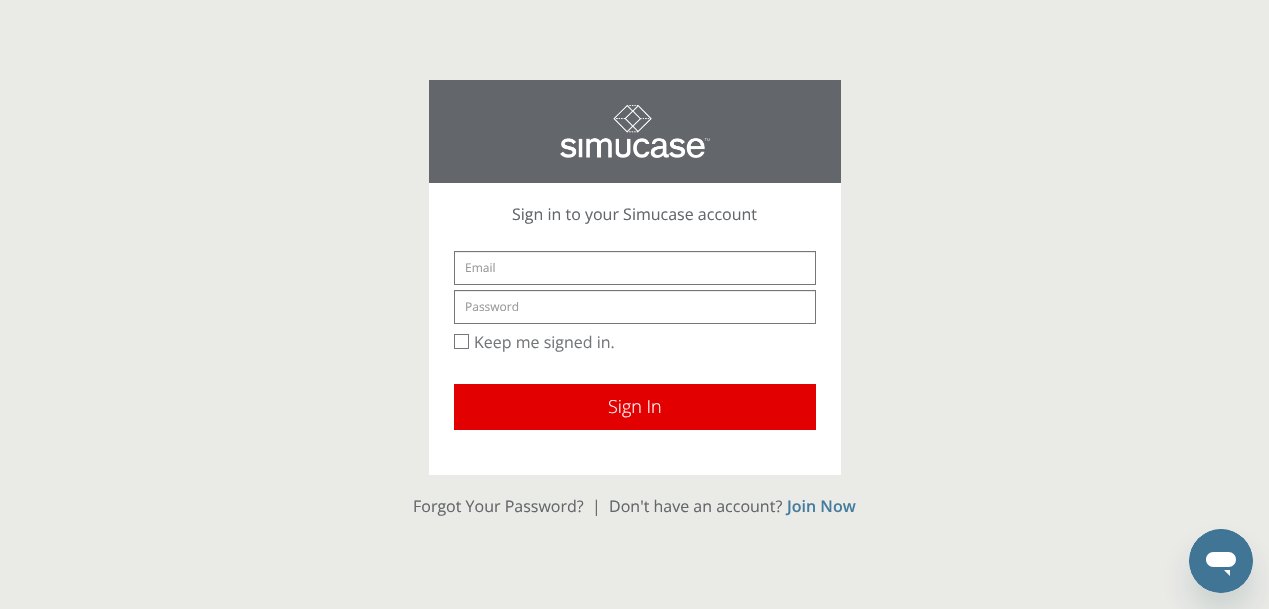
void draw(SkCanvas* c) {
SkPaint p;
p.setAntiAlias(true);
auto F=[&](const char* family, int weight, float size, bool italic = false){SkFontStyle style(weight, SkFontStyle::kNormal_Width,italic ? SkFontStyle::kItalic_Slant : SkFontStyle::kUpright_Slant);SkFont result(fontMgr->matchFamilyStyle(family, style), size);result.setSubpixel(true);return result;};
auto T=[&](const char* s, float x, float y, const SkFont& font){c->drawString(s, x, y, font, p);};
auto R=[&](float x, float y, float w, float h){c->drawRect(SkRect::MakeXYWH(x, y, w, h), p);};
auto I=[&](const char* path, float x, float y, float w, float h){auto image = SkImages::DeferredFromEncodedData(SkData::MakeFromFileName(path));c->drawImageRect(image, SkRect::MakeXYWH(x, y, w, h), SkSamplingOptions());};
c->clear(0xffeaeae7);
p.setColor(0xffffffff);
R(429,183,412,292);
p.setColor(0xff63666a);
R(429,80,412,103);
I("1.png",560,105,150,53);
auto f1 = F("Open Sans",400,16);
T("Sign in to your Simucase account",512,220,f1);
p.setColor(0xffececec);
R(455,252,360,1);
p.setStroke(true);
p.setStrokeWidth(1);
p.setColor(0xff74777a);
c->drawRect(SkRect::MakeXYWH(454.5,251.5,361,33),p);
auto f2 = F("Open Sans",400,12);
p.setStroke(false);
p.setColor(0xff999999);
T("Email",465,272,f2);
p.setColor(0xffececec);
R(455,291,360,1);
p.setStroke(true);
p.setColor(0xff74777a);
c->drawRect(SkRect::MakeXYWH(454.5,290.5,361,33),p);
p.setStroke(false);
p.setColor(0xff999999);
T("Password",465,311,f2);
p.setStroke(true);
p.setColor(0xff74777a);
c->drawRect(SkRect::MakeXYWH(454.5,334.5,14,14),p);
p.setStroke(false);
T("Keep me signed in.",474,348,f1);
p.setColor(0xffe30000);
R(454,384,362,46);
auto f3 = F("Open Sans",300,18);
p.setColor(0xffffffff);
T("Sign In",608,413,f3);
p.setColor(0xff63666a);
T("Forgot Your Password?",413,512,f1);
T("|  Don't have an account?",592,512,f1);
auto f4 = F("Open Sans",600,16);
p.setColor(0xff447c9f);
T("Join Now",787,512,f4);
p.setColor(0x2617494d);
p.setMaskFilter(SkMaskFilter::MakeBlur(kNormal_SkBlurStyle, 15));
c->drawRoundRect(SkRect::MakeXYWH(1189,549,64,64),32,32,p);
p.setMaskFilter(nullptr);
I("2.png",1189,529,64,64);
}
